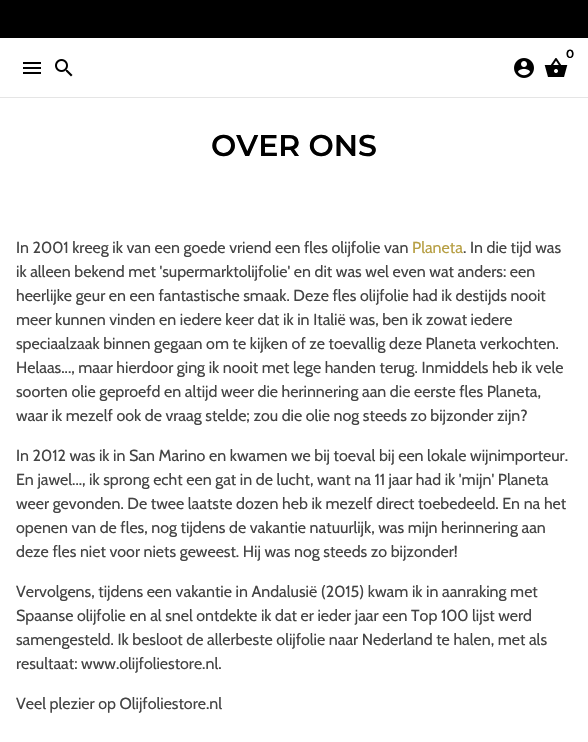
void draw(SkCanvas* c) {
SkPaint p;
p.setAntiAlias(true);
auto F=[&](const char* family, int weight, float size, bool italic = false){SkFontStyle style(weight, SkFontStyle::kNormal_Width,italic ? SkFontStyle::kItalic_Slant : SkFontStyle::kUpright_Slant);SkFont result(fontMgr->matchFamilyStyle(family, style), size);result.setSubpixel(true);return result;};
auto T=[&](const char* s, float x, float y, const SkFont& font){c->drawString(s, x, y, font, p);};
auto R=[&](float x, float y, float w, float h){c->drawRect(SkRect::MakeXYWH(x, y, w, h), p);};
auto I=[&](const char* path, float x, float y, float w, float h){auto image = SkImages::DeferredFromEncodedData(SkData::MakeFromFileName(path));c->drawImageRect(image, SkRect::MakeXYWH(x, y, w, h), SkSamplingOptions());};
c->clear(0xffffffff);
p.setColor(0xff000000);
R(0,0,588,38);
p.setColor(0xffe5e5e5);
R(0,97,588,1);
I("1.png",544,58,24,19);
auto f1 = F("Montserrat",600,12);
p.setColor(0xff000000);
T("0",566,58,f1);
I("2.png",514,58,20,20);
I("3.png",23,62,18,12);
I("4.png",55,59,18,18);
auto f2 = F("Montserrat",600,30);
T("OVER ONS",211,156,f2);
auto f3 = F("Cabin",400,16);
p.setColor(0xff444444);
T("In 2001 kreeg ik van een goede vriend een fles olijfolie van",16,253,f3);
p.setColor(0xffb79f44);
T("Planeta",412,253,f3);
p.setColor(0xff444444);
T(". In die tijd was",463,253,f3);
T("ik alleen bekend met 'supermarktolijfolie' en dit was wel even wat anders: een",16,277,f3);
T("heerlijke geur en een fantastische smaak. Deze fles olijfolie had ik destijds nooit",16,301,f3);
T("meer kunnen vinden en iedere keer dat ik in Italië was, ben ik zowat iedere",16,325,f3);
T("speciaalzaak binnen gegaan om te kijken of ze toevallig deze Planeta verkochten.",16,349,f3);
T("Helaas..., maar hierdoor ging ik nooit met lege handen terug. Inmiddels heb ik vele",16,373,f3);
T("soorten olie geproefd en altijd weer die herinnering aan die eerste fles Planeta,",16,397,f3);
T("waar ik mezelf ook de vraag stelde; zou die olie nog steeds zo bijzonder zijn?",16,421,f3);
T("In 2012 was ik in San Marino en kwamen we bij toeval bij een lokale wijnimporteur.",16,461,f3);
T("En jawel..., ik sprong echt een gat in de lucht, want na 11 jaar had ik 'mijn' Planeta",16,485,f3);
T("weer gevonden. De twee laatste dozen heb ik mezelf direct toebedeeld. En na het",16,509,f3);
T("openen van de fles, nog tijdens de vakantie natuurlijk, was mijn herinnering aan",16,533,f3);
T("deze fles niet voor niets geweest. Hij was nog steeds zo bijzonder!",16,557,f3);
T("Vervolgens, tijdens een vakantie in Andalusië (2015) kwam ik in aanraking met",16,597,f3);
T("Spaanse olijfolie en al snel ontdekte ik dat er ieder jaar een Top 100 lijst werd",16,621,f3);
T("samengesteld. Ik besloot de allerbeste olijfolie naar Nederland te halen, met als",16,645,f3);
T("resultaat: www.olijfoliestore.nl.",16,669,f3);
T("Veel plezier op Olijfoliestore.nl",16,709,f3);
}
